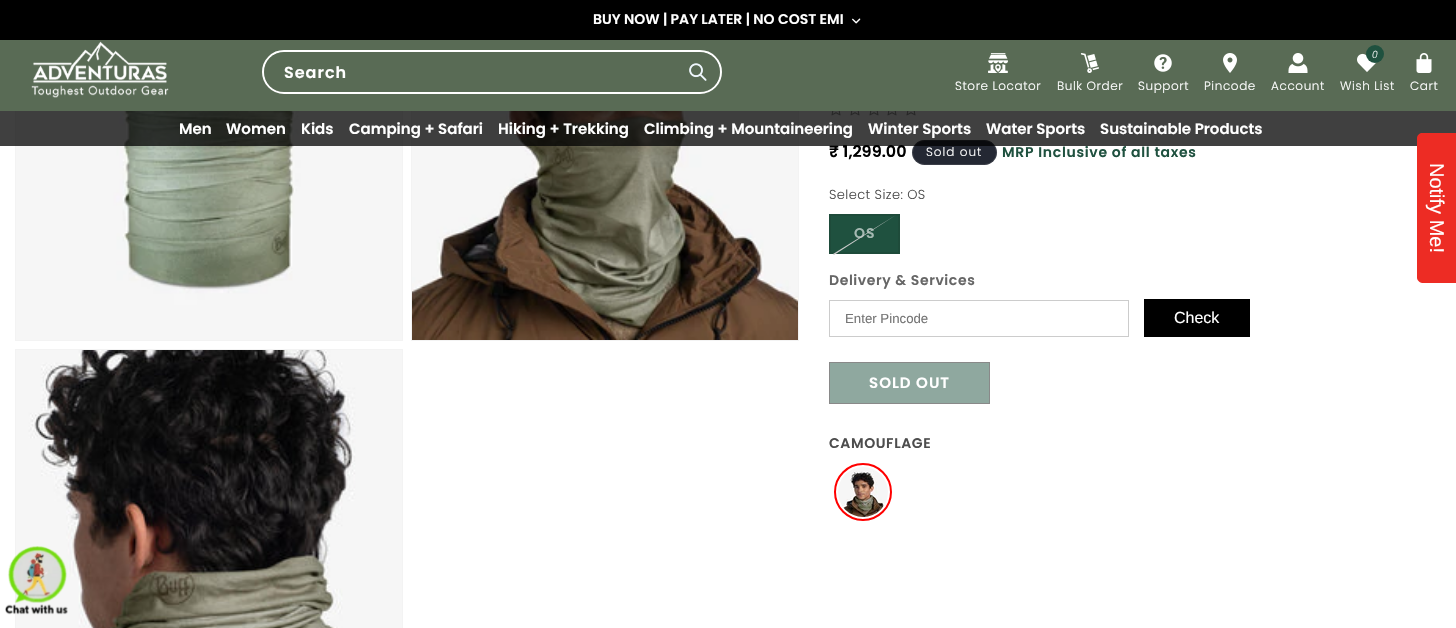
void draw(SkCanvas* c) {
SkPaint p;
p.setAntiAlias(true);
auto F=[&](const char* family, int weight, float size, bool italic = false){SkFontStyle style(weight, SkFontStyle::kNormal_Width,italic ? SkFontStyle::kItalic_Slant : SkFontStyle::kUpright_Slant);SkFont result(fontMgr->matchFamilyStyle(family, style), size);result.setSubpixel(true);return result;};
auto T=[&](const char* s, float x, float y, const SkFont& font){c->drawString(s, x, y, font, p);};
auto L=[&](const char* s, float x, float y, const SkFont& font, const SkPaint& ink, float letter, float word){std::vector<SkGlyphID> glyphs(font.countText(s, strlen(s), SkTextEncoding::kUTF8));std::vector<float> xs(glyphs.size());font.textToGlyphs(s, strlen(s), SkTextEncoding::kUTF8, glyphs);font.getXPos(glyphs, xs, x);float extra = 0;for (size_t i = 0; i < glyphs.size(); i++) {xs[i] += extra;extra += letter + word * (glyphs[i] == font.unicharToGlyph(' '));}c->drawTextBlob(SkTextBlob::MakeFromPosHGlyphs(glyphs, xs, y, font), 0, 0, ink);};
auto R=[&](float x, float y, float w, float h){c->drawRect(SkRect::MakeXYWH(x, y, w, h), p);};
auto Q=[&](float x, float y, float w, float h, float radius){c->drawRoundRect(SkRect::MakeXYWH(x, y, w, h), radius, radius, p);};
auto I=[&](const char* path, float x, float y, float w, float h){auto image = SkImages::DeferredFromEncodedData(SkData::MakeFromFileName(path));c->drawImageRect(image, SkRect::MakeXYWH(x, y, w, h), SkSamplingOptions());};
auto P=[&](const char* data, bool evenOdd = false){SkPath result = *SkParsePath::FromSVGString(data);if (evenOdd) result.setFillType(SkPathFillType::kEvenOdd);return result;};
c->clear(0xffffffff);
p.setStroke(true);
p.setStrokeWidth(1);
p.setColor(0xfff3f3f3);
c->drawRect(SkRect::MakeXYWH(15.5,-.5,387,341),p);
c->drawRect(SkRect::MakeXYWH(411.5,-.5,387,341),p);
p.setStroke(false);
p.setColor(0xff000000);
R(0,0,1456,40);
auto f1 = F("Poppins",600,14);
p.setColor(0xffffffff);
T("BUY NOW | PAY LATER | NO COST EMI",593,24,f1);
I("1.png",852,18,9,6);
p.setColor(0xff596b55);
R(0,40,1456,71);
I("2.png",31,41,138,57);
p.setStroke(true);
p.setStrokeWidth(2);
p.setColor(0xffffffff);
c->drawRoundRect(SkRect::MakeXYWH(263,51,458,42),21,21,p);
p.setStroke(false);
p.setColor(0xff596b55);
Q(264,52,456,40,20);
I("3.png",689,63,18,18);
p.setStroke(true);
p.setStrokeWidth(1);
p.setColor(0x8cffffff);
c->drawRoundRect(SkRect::MakeXYWH(263.5,51.5,457,41),20.5,20.5,p);
auto f2 = F("Poppins",600,16);
p.setStroke(false);
p.setColor(0xffffffff);
L("Search",284,78,f2,p,1,0);
I("4.png",988,53,20,20);
auto f3 = F("Poppins",300,12);
L("Store Locator",955,90,f3,p,.6,0);
I("5.png",1080,53,19,20);
L("Bulk Order",1057,90,f3,p,.6,0);
I("6.png",1154,54,18,18);
L("Support",1138,90,f3,p,.6,0);
I("7.png",1223,53,14,20);
L("Pincode",1204,90,f3,p,.6,0);
I("8.png",1288,53,20,20);
L("Account",1271,90,f3,p,.6,0);
I("9.png",1357,53,20,19);
p.setColor(0xff1f513f);
c->drawCircle(1375,54,9,p);
auto f4 = F("Open Sans",300,10,true);
p.setColor(0xffffffff);
L("0",1372,58,f4,p,.6,0);
L("Wish List",1340,90,f3,p,.6,0);
I("10.png",1416,53,16,20);
L("Cart",1410,90,f3,p,.6,0);
I("11.png",16,111,386,229);
I("12.png",412,111,386,229);
I("14.png",831,111,10,5);
I("14.png",850,111,10,5);
I("14.png",869,111,10,5);
I("14.png",887,111,10,5);
I("14.png",906,111,10,5);
p.setColor(0xff000000);
T("₹ 1,299.00",829,157,f2);
p.setColor(0xff242833);
Q(912,140,85,25,12.5);
p.setStroke(true);
p.setColor(0x1affffff);
c->drawRoundRect(SkRect::MakeXYWH(912.5,140.5,84,24),12,12,p);
p.setStroke(false);
p.setColor(0xbf000000);
R(0,111,1456,35);
auto f5 = F("Poppins",600,15);
p.setColor(0xffffffff);
T("Men",179,134,f5);
T("Women",226,134,f5);
T("Kids",301,134,f5);
T("Camping + Safari",349,134,f5);
T("Hiking + Trekking",498,134,f5);
T("Climbing + Mountaineering",644,134,f5);
T("Winter Sports",868,134,f5);
T("Water Sports",986,134,f5);
T("Sustainable Products",1100,134,f5);
p.setStroke(true);
p.setColor(0xfff3f3f3);
c->drawRect(SkRect::MakeXYWH(15.5,349.5,387,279),p);
I("13.png",16,350,386,278);
p.setStroke(false);
p.setColor(0xffffffff);
L("Sold out",926,156,f3,p,1,0);
p.setColor(0xff1f513f);
L("MRP Inclusive of all taxes",1002,157,f1,p,.7,0);
auto f6 = F("Poppins",300,13);
p.setColor(0xff4d4d4d);
L("Select Size: OS",829,199,f6,p,.4,0);
p.setColor(0xff1f513f);
c->drawRect(SkRect::MakeXYWH(830,215,69,38),p);
p.setStroke(true);
p.setStrokeWidth(2);
p.setColor(0xff1e4b3a);
c->drawRect(SkRect::MakeXYWH(830,215,69,38),p);
p.setStroke(false);
p.setColor(0xffa5b9b2);
L("OS",854,238,f1,p,1,0);
p.setColor(0xffcccccc);
c->drawPath(P("M896 215l-62 40l-1-1z"),p);
p.setColor(0xff666666);
L("Delivery & Services",829,285,f1,p,.6,0);
p.setStroke(true);
p.setStrokeWidth(1);
p.setColor(0xffcccccc);
c->drawRect(SkRect::MakeXYWH(829.5,300.5,299,36),p);
auto f7 = F("Liberation Sans",400,13.25);
p.setStroke(false);
p.setColor(0xff757575);
T("Enter Pincode",845,323,f7);
p.setColor(0xff000000);
R(1144,299,106,38);
auto f8 = F("Liberation Sans",400,16);
p.setColor(0xffffffff);
T("Check",1174,323,f8);
p.setColor(0xff8fa89f);
R(830,363,159,40);
p.setStroke(true);
p.setColor(0xff898989);
c->drawRect(SkRect::MakeXYWH(829.5,362.5,160,41),p);
p.setStroke(false);
p.setColor(0xffffffff);
L("SOLD OUT",869,388,f5,p,1,0);
p.setColor(0xff4d4d4d);
L("CAMOUFLAGE",829,448,f1,p,.6,0);
p.setStroke(true);
p.setStrokeWidth(2);
p.setColor(0xffff0000);
c->drawCircle(863,492,28,p);
I("15.png",838,467,50,50);
p.setStroke(false);
p.setColor(0xffed2c24);
c->drawPath(P("M1456 133v150h-34c-2 0-5-3-5-5v-140c0-3 3-5 5-5z"),p);
auto f9 = F("Liberation Sans",400,20);
p.setColor(0xffffffff);
c->save();
c->rotate(90,1430,163);
T("Notify Me!",1430,163,f9);
c->restore();
I("16.png",5,546,63,69);
}
